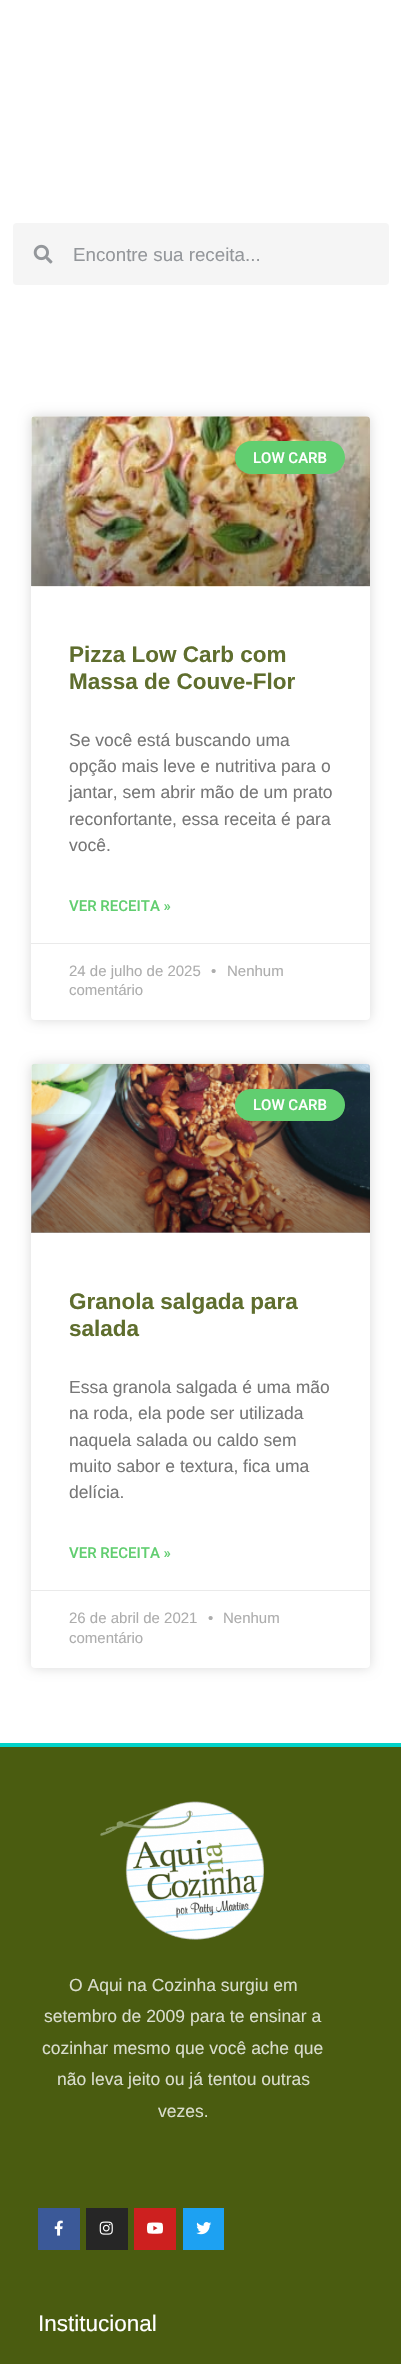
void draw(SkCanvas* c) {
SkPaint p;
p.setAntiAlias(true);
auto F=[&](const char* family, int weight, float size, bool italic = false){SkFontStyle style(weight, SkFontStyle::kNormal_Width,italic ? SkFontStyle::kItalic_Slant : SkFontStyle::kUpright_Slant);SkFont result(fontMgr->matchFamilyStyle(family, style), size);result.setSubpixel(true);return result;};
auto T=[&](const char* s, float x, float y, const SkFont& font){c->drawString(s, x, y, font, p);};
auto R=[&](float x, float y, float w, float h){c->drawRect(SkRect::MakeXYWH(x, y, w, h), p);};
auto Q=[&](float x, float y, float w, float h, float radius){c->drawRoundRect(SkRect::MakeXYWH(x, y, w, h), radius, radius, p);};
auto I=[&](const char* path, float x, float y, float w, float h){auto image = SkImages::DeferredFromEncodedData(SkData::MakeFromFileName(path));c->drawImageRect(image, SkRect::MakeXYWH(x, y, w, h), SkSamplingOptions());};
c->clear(0xffffffff);
p.setColor(0xfff5f5f5);
Q(13,223,376,62,4);
I("1.png",33,244,20,20);
auto f1 = F("Liberation Sans",400,18.75);
p.setColor(0xff94979b);
T("Encontre sua receita...",73,261,f1);
p.setColor(0x26000000);
p.setMaskFilter(SkMaskFilter::MakeBlur(kNormal_SkBlurStyle, 6));
c->drawRoundRect(SkRect::MakeXYWH(31,416,339,604),4,4,p);
p.setMaskFilter(nullptr);
p.setColor(0xffffffff);
Q(31,416,339,604,4);
I("2.png",31,416,339,171);
{
const SkColor colors[] = {0x59000000,0x00000000};
const float stops[] = {0,.75};
const SkPoint ends[] = {{201,586}, {201,416}};
p.setShader(SkGradientShader::MakeLinear(ends, colors, stops, 2, SkTileMode::kClamp));
p.setAlpha(255);
}
R(31,466,339,120);
p.setShader(nullptr);
p.setColor(0xff61ce70);
Q(235,441,110,33,16.5);
auto f2 = F("Roboto",500,15);
p.setColor(0xffffffff);
T("LOW CARB",253,463,f2);
auto f3 = F("Liberation Sans",700,22.5);
p.setColor(0xff5f6e2e);
T("Pizza Low Carb com",69,662,f3);
T("Massa de Couve-Flor",69,689,f3);
auto f4 = F("Liberation Sans",400,17.5);
p.setColor(0xff777777);
T("Se você está buscando uma",69,746,f4);
T("opção mais leve e nutritiva para o",69,772,f4);
T("jantar, sem abrir mão de um prato",69,798,f4);
T("reconfortante, essa receita é para",69,825,f4);
T("você.",69,851,f4);
p.setColor(0xff61ce70);
T("VER RECEITA »",69,911,f2);
p.setColor(0xffeaeaea);
R(31,943,339,1);
auto f5 = F("Liberation Sans",400,15);
p.setColor(0xffadadad);
T("24 de julho de 2025",69,976,f5);
T("•",211,976,f5);
T("Nenhum",227,976,f5);
T("comentário",69,995,f5);
p.setColor(0x26000000);
p.setMaskFilter(SkMaskFilter::MakeBlur(kNormal_SkBlurStyle, 6));
c->drawRoundRect(SkRect::MakeXYWH(31,1064,339,604),4,4,p);
p.setMaskFilter(nullptr);
p.setColor(0xffffffff);
Q(31,1064,339,604,4);
I("3.png",31,1063,339,170);
{
const SkColor colors[] = {0x59000000,0x00000000};
const float stops[] = {0,.75};
const SkPoint ends[] = {{201,1233}, {201,1064}};
p.setShader(SkGradientShader::MakeLinear(ends, colors, stops, 2, SkTileMode::kClamp));
p.setAlpha(255);
}
R(31,1114,339,119);
p.setShader(nullptr);
p.setColor(0xff61ce70);
Q(235,1089,110,32,16);
p.setColor(0xffffffff);
T("LOW CARB",253,1110,f2);
p.setColor(0xff5f6e2e);
T("Granola salgada para",69,1309,f3);
T("salada",69,1336,f3);
p.setColor(0xff777777);
T("Essa granola salgada é uma mão",69,1393,f4);
T("na roda, ela pode ser utilizada",69,1419,f4);
T("naquela salada ou caldo sem",69,1446,f4);
T("muito sabor e textura, fica uma",69,1472,f4);
T("delícia.",69,1498,f4);
p.setColor(0xff61ce70);
T("VER RECEITA »",69,1558,f2);
p.setColor(0xffeaeaea);
R(31,1590,339,1);
p.setColor(0xffadadad);
T("26 de abril de 2021",69,1623,f5);
T("•",208,1623,f5);
T("Nenhum",223,1623,f5);
T("comentário",69,1643,f5);
p.setColor(0xff4a5c10);
R(0,1747,401,617);
p.setColor(0xff02d3c9);
R(0,1743,401,4);
I("4.png",100,1801,164,139);
p.setColor(0xffd9ddcd);
T("O Aqui na Cozinha surgiu em",69,1991,f4);
T("setembro de 2009 para te ensinar a",44,2022,f4);
T("cozinhar mesmo que você ache que",42,2054,f4);
T("não leva jeito ou já tentou outras",57,2085,f4);
T("vezes.",158,2117,f4);
p.setColor(0xff3b5998);
R(38,2208,42,42);
I("5.png",54,2220,9,16);
p.setColor(0xff262626);
R(86,2208,42,42);
I("6.png",99,2221,14,14);
p.setColor(0xffcd201f);
R(134,2208,42,42);
I("7.png",147,2222,16,12);
p.setColor(0xff1da1f2);
R(183,2208,41,42);
I("8.png",196,2222,16,13);
auto f6 = F("Liberation Sans",400,22.5);
p.setColor(0xffffffff);
T("Institucional",38,2331,f6);
}
